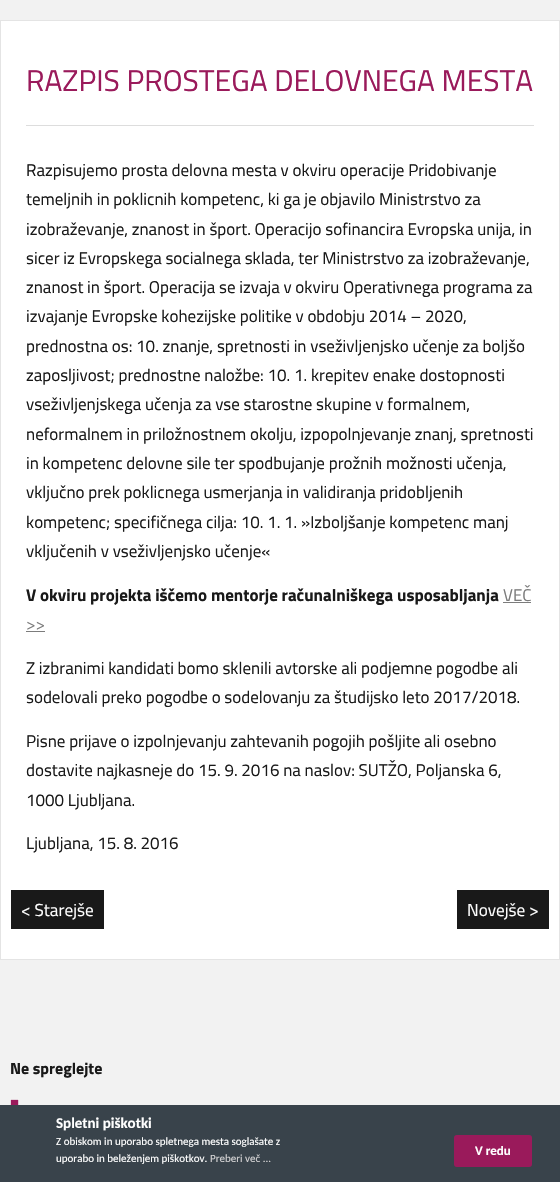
void draw(SkCanvas* c) {
SkPaint p;
p.setAntiAlias(true);
auto F=[&](const char* family, int weight, float size, bool italic = false){SkFontStyle style(weight, SkFontStyle::kNormal_Width,italic ? SkFontStyle::kItalic_Slant : SkFontStyle::kUpright_Slant);SkFont result(fontMgr->matchFamilyStyle(family, style), size);result.setSubpixel(true);return result;};
auto T=[&](const char* s, float x, float y, const SkFont& font){c->drawString(s, x, y, font, p);};
auto R=[&](float x, float y, float w, float h){c->drawRect(SkRect::MakeXYWH(x, y, w, h), p);};
auto Q=[&](float x, float y, float w, float h, float radius){c->drawRoundRect(SkRect::MakeXYWH(x, y, w, h), radius, radius, p);};
c->clear(0xfff2f2f2);
p.setColor(0xffffffff);
c->drawRect(SkRect::MakeXYWH(.5,20.5,559,939),p);
p.setStroke(true);
p.setStrokeWidth(1);
p.setColor(0xffe4e4e4);
c->drawRect(SkRect::MakeXYWH(.5,20.5,559,939),p);
auto f1 = F("Titillium Web",400,30);
p.setStroke(false);
p.setColor(0xff9a1a5b);
T("RAZPIS PROSTEGA DELOVNEGA MESTA",26,91,f1);
p.setColor(0xffdddddd);
R(26,125,508,1);
auto f2 = F("Titillium Web",400,17);
p.setColor(0xff191919);
T("Razpisujemo prosta delovna mesta v okviru operacije Pridobivanje",26,176,f2);
T("temeljnih in poklicnih kompetenc, ki ga je objavilo Ministrstvo za",26,205,f2);
T("izobraževanje, znanost in šport. Operacijo sofinancira Evropska unija, in",26,235,f2);
T("sicer iz Evropskega socialnega sklada, ter Ministrstvo za izobraževanje,",26,264,f2);
T("znanost in šport. Operacija se izvaja v okviru Operativnega programa za",26,293,f2);
T("izvajanje Evropske kohezijske politike v obdobju 2014 – 2020,",26,322,f2);
T("prednostna os: 10. znanje, spretnosti in vseživljenjsko učenje za boljšo",26,352,f2);
T("zaposljivost; prednostne naložbe: 10. 1. krepitev enake dostopnosti",26,381,f2);
T("vseživljenjskega učenja za vse starostne skupine v formalnem,",26,410,f2);
T("neformalnem in priložnostnem okolju, izpopolnjevanje znanj, spretnosti",26,440,f2);
T("in kompetenc delovne sile ter spodbujanje prožnih možnosti učenja,",26,469,f2);
T("vključno prek poklicnega usmerjanja in validiranja pridobljenih",26,498,f2);
T("kompetenc; specifičnega cilja: 10. 1. 1. »Izboljšanje kompetenc manj",26,528,f2);
T("vključenih v vseživljenjsko učenje«",26,557,f2);
auto f3 = F("Titillium Web",700,17);
T("V okviru projekta iščemo mentorje računalniškega usposabljanja",26,601,f3);
p.setColor(0xff7c7c7c);
R(503,602,28,1);
T("VEČ",503,601,f2);
T(">>",26,630,f2);
R(26,631,19,1);
p.setColor(0xff191919);
T("Z izbranimi kandidati bomo sklenili avtorske ali podjemne pogodbe ali",26,674,f2);
T("sodelovali preko pogodbe o sodelovanju za študijsko leto 2017/2018.",26,703,f2);
T("Pisne prijave o izpolnjevanju zahtevanih pogojih pošljite ali osebno",26,747,f2);
T("dostavite najkasneje do 15. 9. 2016 na naslov: SUTŽO, Poljanska 6,",26,776,f2);
T("1000 Ljubljana.",26,806,f2);
T("Ljubljana, 15. 8. 2016",26,849,f2);
R(11,890,93,39);
auto f4 = F("Titillium Web",400,17.25);
p.setColor(0xffffffff);
T("< Starejše",21,916,f4);
p.setColor(0xff191919);
R(457,890,92,39);
p.setColor(0xffffffff);
T("Novejše >",467,916,f4);
auto f5 = F("Titillium Web",700,16);
p.setColor(0xff191919);
T("Ne spreglejte",10,1074,f5);
auto f6 = F("Liberation Sans",400,15);
p.setColor(0xff9a1a5b);
T("■",10,1108,f6);
p.setColor(0xff39434b);
R(0,1105,560,77);
auto f7 = F("Carlito",700,15);
p.setColor(0xffffffff);
T("Spletni piškotki",56,1128,f7);
auto f8 = F("Carlito",400,11);
T("Z obiskom in uporabo spletnega mesta soglašate z",56,1145,f8);
T("uporabo in beleženjem piškotkov.",56,1162,f8);
p.setColor(0xffd3d2d3);
T("Preberi več ...",210,1162,f8);
p.setColor(0xff9a1a5b);
Q(454,1135,78,32,3);
auto f9 = F("Carlito",700,13);
p.setColor(0xffffffff);
T("V redu",475,1155,f9);
}
